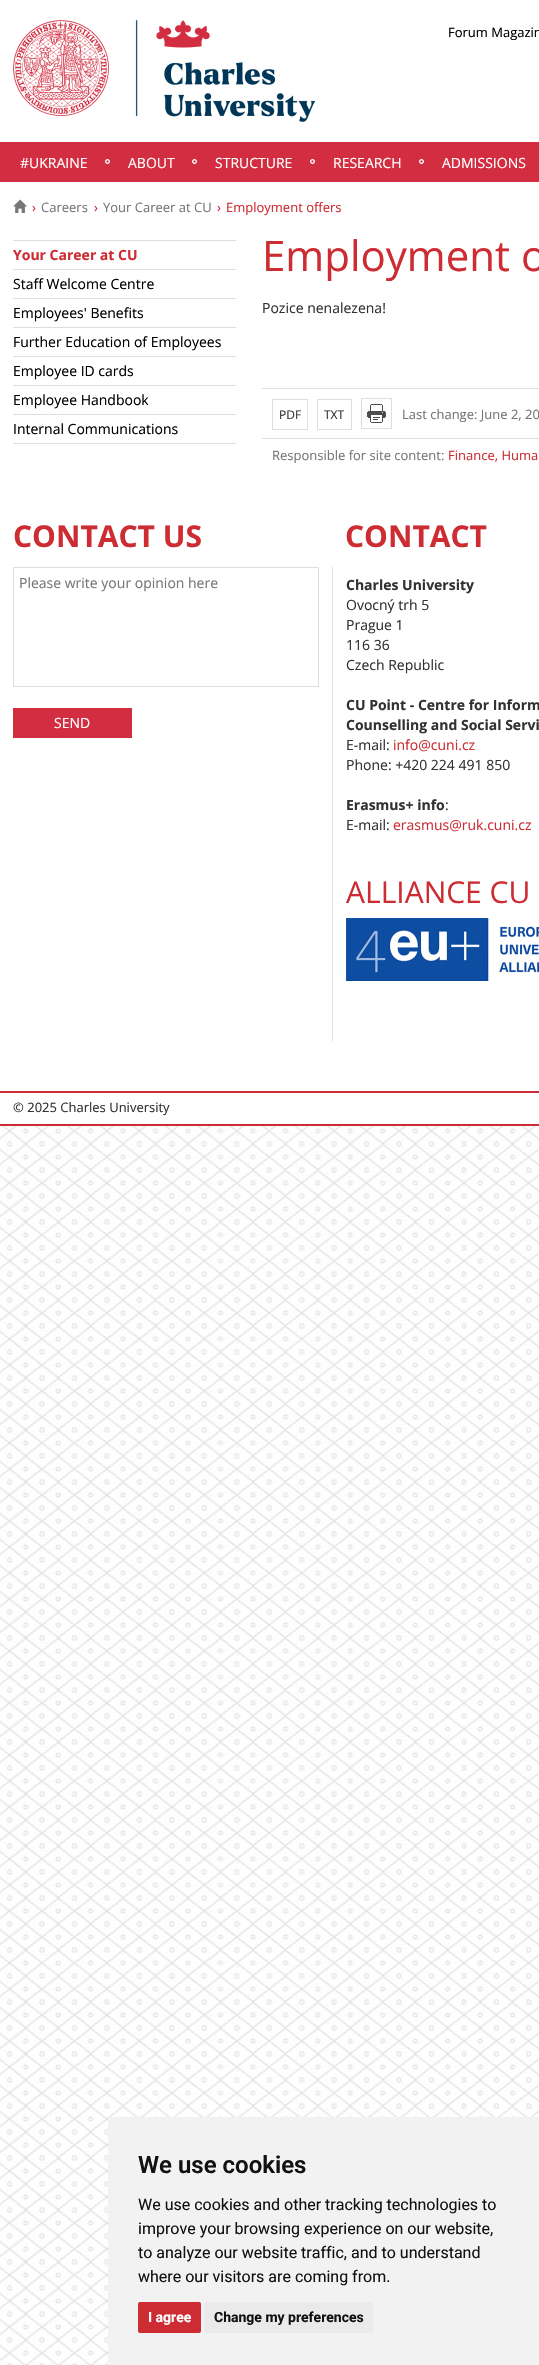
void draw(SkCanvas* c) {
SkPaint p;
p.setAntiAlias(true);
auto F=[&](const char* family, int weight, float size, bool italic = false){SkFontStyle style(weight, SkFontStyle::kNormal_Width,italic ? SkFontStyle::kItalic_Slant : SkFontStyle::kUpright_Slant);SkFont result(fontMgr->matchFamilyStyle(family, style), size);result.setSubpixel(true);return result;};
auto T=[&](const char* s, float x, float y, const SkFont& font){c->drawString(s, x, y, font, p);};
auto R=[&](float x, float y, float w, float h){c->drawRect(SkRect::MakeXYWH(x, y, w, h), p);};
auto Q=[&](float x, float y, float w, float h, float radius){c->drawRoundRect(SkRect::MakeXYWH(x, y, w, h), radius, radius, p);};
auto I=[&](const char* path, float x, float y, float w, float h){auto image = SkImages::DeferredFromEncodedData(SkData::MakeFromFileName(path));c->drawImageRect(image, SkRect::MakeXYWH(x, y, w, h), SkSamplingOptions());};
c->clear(0xffffffff);
I("1.png",0,1126,539,1239);
I("2.png",13,20,303,102);
auto f1 = F("Open Sans",400,13);
p.setColor(0xff000000);
T("Forum Magazin",448,37,f1);
p.setColor(0xffd32d41);
R(0,142,539,40);
auto f2 = F("Open Sans",400,14);
p.setColor(0xffffffff);
T("#UKRAINE",20,168,f2);
I("3.png",105,159,5,5);
T("ABOUT",128,168,f2);
I("3.png",192,159,5,5);
T("STRUCTURE",215,168,f2);
I("3.png",310,159,5,5);
T("RESEARCH",333,168,f2);
I("3.png",419,159,5,5);
T("ADMISSIONS",442,168,f2);
I("4.png",13,199,14,14);
p.setColor(0xffcc2c32);
T("›",32,212,f1);
p.setColor(0xff767676);
T("Careers",41,212,f1);
p.setColor(0xffcc2c32);
T("›",94,212,f1);
p.setColor(0xff767676);
T("Your Career at CU",103,212,f1);
p.setColor(0xffcc2c32);
T("›",217,212,f1);
T("Employment offers",226,212,f1);
p.setColor(0xffdedede);
R(13,240,223,1);
R(13,269,223,1);
auto f3 = F("Open Sans",700,14);
p.setColor(0xffcc2c32);
T("Your Career at CU",13,260,f3);
p.setColor(0xffdedede);
R(13,298,223,1);
p.setColor(0xff000000);
T("Staff Welcome Centre",13,289,f2);
p.setColor(0xffdedede);
R(13,327,223,1);
p.setColor(0xff000000);
T("Employees' Benefits",13,318,f2);
p.setColor(0xffdedede);
R(13,356,223,1);
p.setColor(0xff000000);
T("Further Education of Employees",13,347,f2);
p.setColor(0xffdedede);
R(13,385,223,1);
p.setColor(0xff000000);
T("Employee ID cards",13,376,f2);
p.setColor(0xffdedede);
R(13,414,223,1);
p.setColor(0xff000000);
T("Employee Handbook",13,405,f2);
p.setColor(0xffdedede);
R(13,443,223,1);
p.setColor(0xff000000);
T("Internal Communications",13,434,f2);
auto f4 = F("Open Sans",400,42);
p.setColor(0xffcc2c32);
T("Employment o",262,271,f4);
p.setColor(0xffdedede);
R(262,388,277,1);
p.setColor(0xff323232);
T("Pozice nenalezena!",262,313,f2);
p.setStroke(true);
p.setStrokeWidth(1);
p.setColor(0xffdedede);
c->drawRect(SkRect::MakeXYWH(272.5,399.5,35,30),p);
auto f5 = F("Open Sans",400,12);
p.setStroke(false);
p.setColor(0xff323232);
T("PDF",279,419,f5);
p.setStroke(true);
p.setColor(0xffdedede);
c->drawRect(SkRect::MakeXYWH(317.5,399.5,34,30),p);
p.setStroke(false);
p.setColor(0xff323232);
T("TXT",324,419,f5);
p.setStroke(true);
p.setColor(0xffdedede);
c->drawRect(SkRect::MakeXYWH(361.5,398.5,30,30),p);
I("5.png",362,399,24,24);
p.setStroke(false);
p.setColor(0xff767676);
T("Last change: June 2, 20",402,419,f1);
p.setColor(0xffdedede);
R(262,438,277,1);
p.setColor(0xff767676);
T("Responsible for site content:",272,460,f1);
p.setColor(0xffcc2c32);
T("Finance, Huma",448,460,f1);
auto f6 = F("Open Sans",700,30);
T("CONTACT US",13,547,f6);
p.setStroke(true);
p.setColor(0xffdedede);
c->drawRect(SkRect::MakeXYWH(13.5,567.5,305,119),p);
p.setStroke(false);
p.setColor(0xff767676);
T("Please write your opinion here",19,588,f2);
p.setColor(0xffd32d41);
R(13,708,119,30);
p.setColor(0xffffffff);
T("SEND",54,728,f2);
p.setColor(0xffcc2c32);
T("CONTACT",345,547,f6);
p.setColor(0xffdedede);
R(332,567,1,474);
p.setColor(0xff323232);
T("Charles University",346,590,f3);
T("Ovocný trh 5",346,610,f2);
T("Prague 1",346,630,f2);
T("116 36",346,650,f2);
T("Czech Republic",346,670,f2);
T("CU Point - Centre for Inform",346,710,f3);
T("Counselling and Social Servi",346,730,f3);
T("E-mail:",346,750,f2);
p.setColor(0xffcc2c32);
T("info@cuni.cz",393,750,f2);
p.setColor(0xff323232);
T("Phone: +420 224 491 850",346,770,f2);
T("Erasmus+ info",346,810,f3);
T(":",445,810,f2);
T("E-mail:",346,830,f2);
p.setColor(0xffcc2c32);
T("erasmus@ruk.cuni.cz",393,830,f2);
auto f7 = F("Open Sans",400,30);
T("ALLIANCE CU",346,903,f7);
I("6.png",346,918,193,63);
R(0,1091,539,2);
R(0,1124,539,2);
p.setColor(0xff323232);
T("© 2025 Charles University",13,1112,f1);
p.setColor(0xfff2f2f2);
R(108,2117,431,248);
auto f8 = F("Roboto",600,24);
p.setColor(0xff111111);
T("We use cookies",138,2173,f8);
auto f9 = F("Roboto",400,16);
T("We use cookies and other tracking technologies to",138,2210,f9);
T("improve your browsing experience on our website,",138,2234,f9);
T("to analyze our website traffic, and to understand",138,2258,f9);
T("where our visitors are coming from.",138,2282,f9);
p.setColor(0xffcc2c32);
Q(138,2302,63,31,2);
auto f10 = F("Roboto",700,14);
p.setColor(0xffffffff);
T("I agree",148,2322,f10);
p.setColor(0xffeaeaea);
Q(204,2302,169,31,2);
p.setColor(0xff111111);
T("Change my preferences",214,2322,f10);
}
